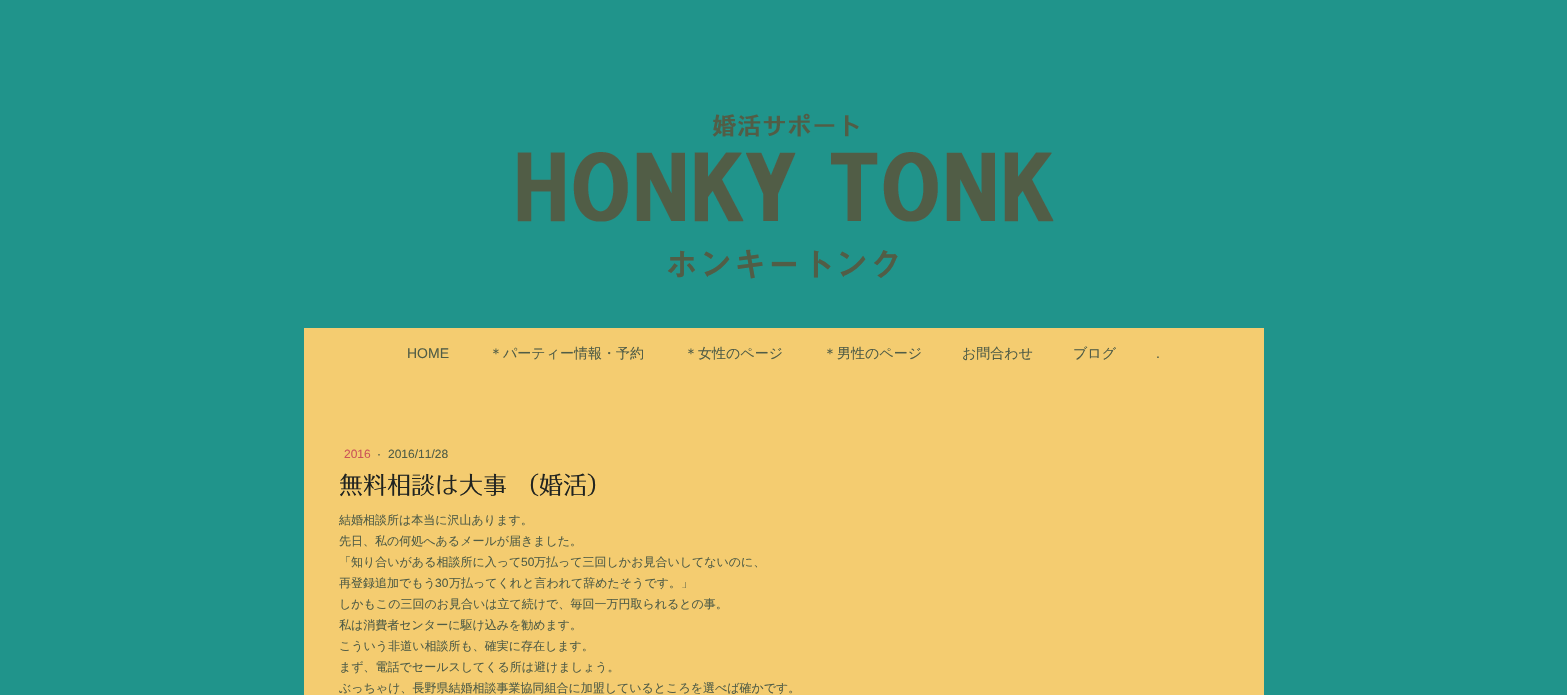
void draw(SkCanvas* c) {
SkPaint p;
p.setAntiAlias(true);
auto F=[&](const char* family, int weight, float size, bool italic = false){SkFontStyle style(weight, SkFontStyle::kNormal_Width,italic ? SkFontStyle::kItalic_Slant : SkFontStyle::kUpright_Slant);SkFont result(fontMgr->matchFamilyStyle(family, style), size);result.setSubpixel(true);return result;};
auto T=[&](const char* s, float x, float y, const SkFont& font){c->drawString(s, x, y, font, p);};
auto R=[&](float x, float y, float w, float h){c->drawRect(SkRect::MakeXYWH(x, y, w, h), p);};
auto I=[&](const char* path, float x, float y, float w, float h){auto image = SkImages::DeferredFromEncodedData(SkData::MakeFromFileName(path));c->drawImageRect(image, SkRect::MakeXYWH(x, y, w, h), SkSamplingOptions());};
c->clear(0xff20948b);
I("1.png",517,113,537,109);
auto f1 = F("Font",600,34);
p.setColor(0xff515d46);
T("ホンキートンク",665,277,f1);
p.setColor(0xfff4cc70);
R(304,328,960,367);
auto f2 = F("Liberation Sans",400,14);
p.setColor(0xff515d46);
T("HOME",407,358,f2);
auto f3 = F("WenQuanYi Zen Hei",500,14);
T("＊パーティー情報・予約",489,358,f3);
T("＊女性のページ",684,358,f3);
T("＊男性のページ",823,358,f3);
T("お問合わせ",962,358,f3);
T("ブログ",1073,358,f3);
T(".",1156,358,f2);
auto f4 = F("Liberation Sans",400,12);
p.setColor(0xffcb5457);
T("2016",344,458,f4);
p.setColor(0xff515d46);
T("·",377,458,f4);
T("2016/11/28",388,458,f4);
auto f5 = F("Font",400,24);
p.setColor(0xff202320);
T("無料相談は大事 （婚活）",339,494,f5);
auto f6 = F("WenQuanYi Zen Hei",500,12);
p.setColor(0xff515d46);
T("結婚相談所は本当に沢山あります。",339,524,f6);
T("先日、私の何処へあるメールが届きました。",339,545,f6);
T("「知り合いがある相談所に入って",339,566,f6);
T("50",521,566,f4);
T("万払って三回しかお見合いしてないのに、",534,566,f6);
T("再登録追加でもう",339,587,f6);
T("30",435,587,f4);
T("万払ってくれと言われて辞めたそうです。」",449,587,f6);
T("しかもこの三回のお見合いは立て続けで、毎回一万円取られるとの事。",339,608,f6);
T("私は消費者センターに駆け込みを勧めます。",339,629,f6);
T("こういう非道い相談所も、確実に存在します。",339,650,f6);
T("まず、電話でセールスしてくる所は避けましょう。",339,671,f6);
T("ぶっちゃけ、長野県結婚相談事業協同組合に加盟しているところを選べば確かです。",339,692,f6);
}
